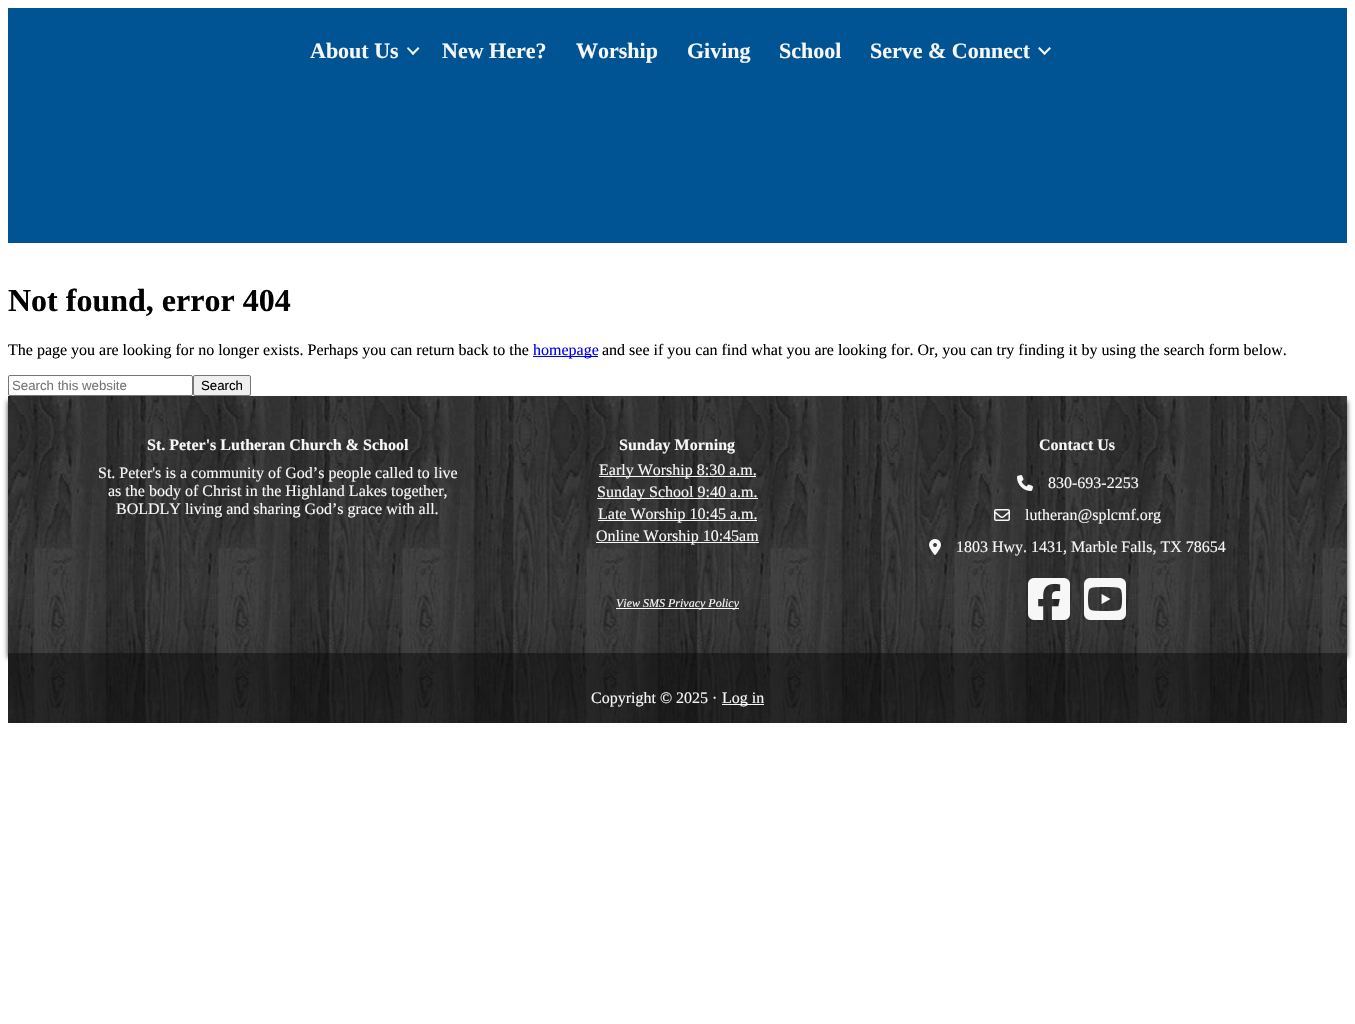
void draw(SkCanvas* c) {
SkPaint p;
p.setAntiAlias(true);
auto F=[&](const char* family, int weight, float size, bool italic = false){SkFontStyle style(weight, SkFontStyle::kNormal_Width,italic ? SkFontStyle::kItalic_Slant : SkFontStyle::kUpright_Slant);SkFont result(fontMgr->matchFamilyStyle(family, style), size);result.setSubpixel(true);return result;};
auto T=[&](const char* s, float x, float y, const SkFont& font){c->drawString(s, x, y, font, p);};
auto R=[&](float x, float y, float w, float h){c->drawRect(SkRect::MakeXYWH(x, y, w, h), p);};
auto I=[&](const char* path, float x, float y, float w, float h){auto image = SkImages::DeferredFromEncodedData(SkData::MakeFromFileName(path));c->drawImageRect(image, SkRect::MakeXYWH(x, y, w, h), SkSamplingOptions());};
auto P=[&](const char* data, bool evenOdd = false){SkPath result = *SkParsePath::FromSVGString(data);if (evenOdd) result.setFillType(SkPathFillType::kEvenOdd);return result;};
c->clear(0xffffffff);
p.setColor(0xff005494);
R(8,8,1339,235);
auto f1 = F("Liberation Serif",700,22);
p.setColor(0xfff7f7f7);
T("About Us",310,58,f1);
c->drawPath(P("M418 47l1.5 1.5l-6.5 6.5l-1.5-1.5z"),p);
c->drawPath(P("M408 47l6.5 6.5l-1.5 1.5l-6-6.5z"),p);
T("New Here?",442,58,f1);
T("Worship",576,58,f1);
T("Giving",687,58,f1);
T("School",779,58,f1);
T("Serve & Connect",870,58,f1);
c->drawPath(P("M1049.5 47l1.5 1.5l-6.5 6.5l-1.5-1.5z"),p);
c->drawPath(P("M1039.5 47l6.5 6.5l-1.5 1.5l-6.5-6.5z"),p);
auto f2 = F("Liberation Serif",700,32);
p.setColor(0xff000000);
T("Not found, error 404",8,311,f2);
auto f3 = F("Liberation Serif",400,16);
T("The page you are looking for no longer exists. Perhaps you can return back to the",8,355,f3);
p.setColor(0xff0000ee);
R(533,356,65,1);
T("homepage",533,355,f3);
p.setColor(0xff000000);
T("and see if you can find what you are looking for. Or, you can try finding it by using the search form below.",602,355,f3);
p.setStroke(true);
p.setStrokeWidth(1);
p.setColor(0xff767676);
c->drawRoundRect(SkRect::MakeXYWH(8.5,375.5,184,20),1.5,1.5,p);
auto f4 = F("Liberation Sans",400,13.25);
p.setStroke(false);
p.setColor(0xff757575);
T("Search this website",12,390,f4);
p.setColor(0xffefefef);
c->drawRoundRect(SkRect::MakeXYWH(193.5,375.5,57,20),1.5,1.5,p);
p.setStroke(true);
p.setColor(0xff767676);
c->drawRoundRect(SkRect::MakeXYWH(193.5,375.5,57,20),1.5,1.5,p);
p.setStroke(false);
p.setColor(0xff000000);
T("Search",201,390,f4);
p.setColor(0xbf000000);
p.setMaskFilter(SkMaskFilter::MakeBlur(kNormal_SkBlurStyle, 2.5));
c->drawRect(SkRect::MakeXYWH(8,401,1339,257),p);
p.setMaskFilter(nullptr);
I("1.png",8,396,1339,257);
auto f5 = F("Liberation Serif",700,16);
p.setColor(0xfff7f7f7);
T("St. Peter's Lutheran Church & School",147,450,f5);
T("St. Peter's is a community of God’s people called to live",98,478,f3);
T("as the body of Christ in the Highland Lakes together,",108,496,f3);
T("BOLDLY living and sharing God’s grace with all.",116,514,f3);
T("Sunday Morning",619,450,f5);
R(599,476,157,1);
T("Early Worship 8:30 a.m.",599,475,f3);
R(597,498,161,1);
T("Sunday School 9:40 a.m.",597,497,f3);
R(598,520,159,1);
T("Late Worship 10:45 a.m.",598,519,f3);
R(596,542,163,1);
T("Online Worship 10:45am",596,541,f3);
R(616,608,123,1);
auto f6 = F("Liberation Serif",400,12,true);
T("View SMS Privacy Policy",616,607,f6);
T("Contact Us",1039,450,f5);
I("2.png",1017,475,16,16);
T("830-693-2253",1048,488,f3);
I("3.png",994,509,16,12);
T("lutheran@splcmf.org",1025,520,f3);
I("4.png",929,539,12,16);
T("1803 Hwy. 1431, Marble Falls, TX 78654",956,552,f3);
I("5.png",1028,578,42,42);
I("6.png",1084,578,42,42);
I("7.png",8,653,1339,70);
T("Copyright © 2025 ·",591,703,f3);
R(722,704,42,1);
T("Log in",722,703,f3);
}
